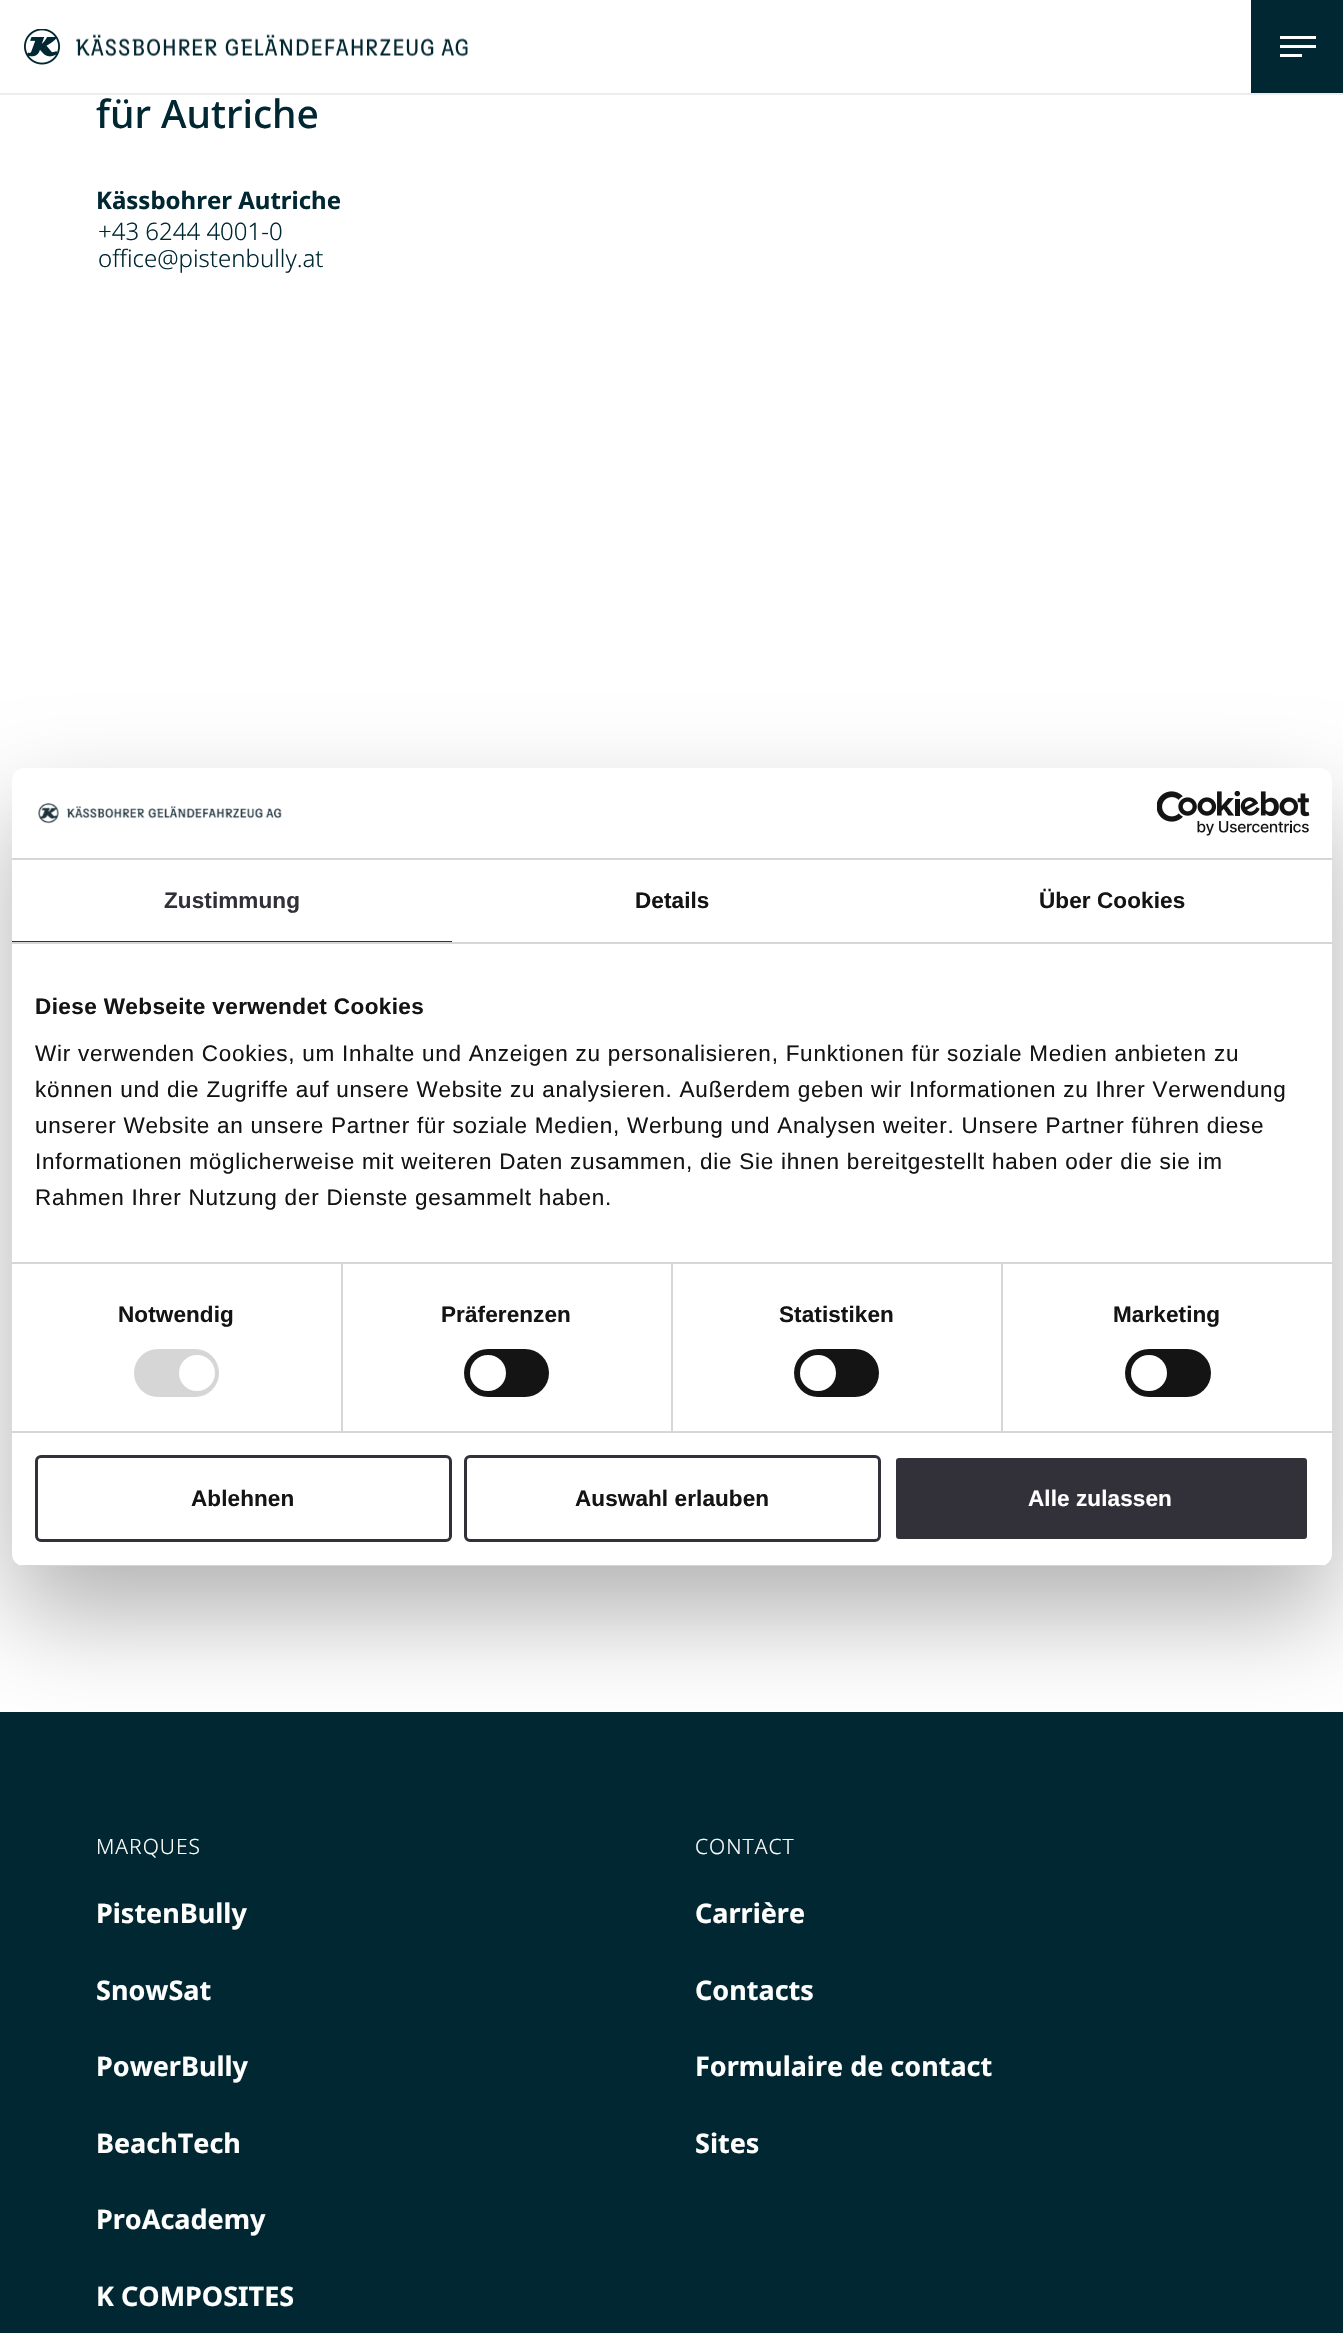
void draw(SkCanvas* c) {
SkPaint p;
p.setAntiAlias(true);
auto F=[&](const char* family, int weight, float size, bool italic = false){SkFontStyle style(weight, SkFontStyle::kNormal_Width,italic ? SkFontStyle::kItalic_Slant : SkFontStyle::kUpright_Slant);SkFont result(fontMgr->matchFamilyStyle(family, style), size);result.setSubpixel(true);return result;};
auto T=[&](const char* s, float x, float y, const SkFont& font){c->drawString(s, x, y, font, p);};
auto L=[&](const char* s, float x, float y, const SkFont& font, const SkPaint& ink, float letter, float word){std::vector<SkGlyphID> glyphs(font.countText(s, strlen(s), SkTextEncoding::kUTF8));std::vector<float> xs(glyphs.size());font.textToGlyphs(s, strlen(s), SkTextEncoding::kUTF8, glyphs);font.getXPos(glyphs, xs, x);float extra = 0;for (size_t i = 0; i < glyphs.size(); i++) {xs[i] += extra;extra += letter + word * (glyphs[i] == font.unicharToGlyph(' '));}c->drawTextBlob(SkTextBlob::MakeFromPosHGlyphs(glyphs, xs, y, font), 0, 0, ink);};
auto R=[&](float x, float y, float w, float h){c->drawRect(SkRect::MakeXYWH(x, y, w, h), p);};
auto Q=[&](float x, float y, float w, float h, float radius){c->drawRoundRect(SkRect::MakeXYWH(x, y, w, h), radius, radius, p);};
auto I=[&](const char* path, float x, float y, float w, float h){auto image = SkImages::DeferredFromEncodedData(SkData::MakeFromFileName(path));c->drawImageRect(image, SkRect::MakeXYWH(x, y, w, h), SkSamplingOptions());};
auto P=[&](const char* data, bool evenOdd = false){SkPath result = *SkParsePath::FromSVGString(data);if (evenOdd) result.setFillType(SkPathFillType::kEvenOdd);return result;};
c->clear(0xffffffff);
p.setColor(0xffeaecef);
R(0,93,1343,2);
I("1.png",24,29,36,36);
I("2.png",76,34,392,23);
p.setColor(0xff002732);
R(1251,0,92,93);
p.setColor(0xffffffff);
R(1280,36,36,3);
R(1280,45,36,3);
R(1280,54,22,3);
auto f1 = F("Noto Sans",500,39);
p.setColor(0xff002732);
T("für Autriche",96,128,f1);
auto f2 = F("Noto Sans",700,24);
T("Kässbohrer Autriche",96,209,f2);
auto f3 = F("Noto Sans",300,24);
T("+43 6244 4001-0",98,240,f3);
T("office@pistenbully.at",98,267,f3);
R(0,1712,1343,621);
p.setColor(0x4d000000);
p.setMaskFilter(SkMaskFilter::MakeBlur(kNormal_SkBlurStyle, 51));
c->drawRoundRect(SkRect::MakeXYWH(12,816,1320,798),12,12,p);
p.setMaskFilter(nullptr);
p.setColor(0xffffffff);
Q(12,768,1320,798,12);
p.setColor(0xffd6d6d6);
R(12,858,1320,2);
I("3.png",38,803,244,21);
I("4.png",1157,791,153,45);
R(12,942,1320,2);
p.setColor(0xff323139);
R(12,941,440,1);
auto f4 = F("Liberation Sans",700,22.5);
L("Zustimmung",164,908,f4,p,.1,0);
p.setColor(0xff141414);
L("Details",635,908,f4,p,.1,0);
L("Über Cookies",1039,908,f4,p,.1,0);
p.setColor(0xffd6d6d6);
R(341,1263,2,168);
R(671,1263,2,168);
R(1001,1263,2,168);
R(12,1262,1320,2);
p.setColor(0xff141414);
L("Diese Webseite verwendet Cookies",35,1014,f4,p,.4,0);
auto f5 = F("Liberation Sans",400,22.5);
L("Wir verwenden Cookies, um Inhalte und Anzeigen zu personalisieren, Funktionen für soziale Medien anbieten zu",35,1061,f5,p,.75,0);
L("können und die Zugriffe auf unsere Website zu analysieren. Außerdem geben wir Informationen zu Ihrer Verwendung",35,1097,f5,p,.75,0);
L("unserer Website an unsere Partner für soziale Medien, Werbung und Analysen weiter. Unsere Partner führen diese",35,1133,f5,p,.75,0);
L("Informationen möglicherweise mit weiteren Daten zusammen, die Sie ihnen bereitgestellt haben oder die sie im",35,1169,f5,p,.75,0);
L("Rahmen Ihrer Nutzung der Dienste gesammelt haben.",35,1205,f5,p,.75,0);
p.setColor(0xffd6d6d6);
R(12,1431,1320,2);
p.setColor(0xff141414);
L("Notwendig",118,1322,f4,p,.1,0);
p.setColor(0xffd6d6d6);
Q(134,1349,85,48,24);
p.setColor(0xffffffff);
c->drawCircle(197,1373,18,p);
p.setColor(0xff141414);
L("Präferenzen",441,1322,f4,p,.1,0);
Q(464,1349,85,48,24);
p.setColor(0xffffffff);
c->drawCircle(488,1373,18,p);
p.setColor(0xff141414);
L("Statistiken",779,1322,f4,p,.1,0);
Q(794,1349,85,48,24);
p.setColor(0xffffffff);
c->drawCircle(818,1373,18,p);
p.setColor(0xff141414);
L("Marketing",1113,1322,f4,p,.1,0);
Q(1125,1349,86,48,24);
p.setColor(0xffffffff);
c->drawCircle(1149,1373,18,p);
c->save();
c->clipPath(P("M24 768h1296c6.5 0 12 5.5 12 12v774c0 6.5-5.5 12-12 12h-1296c-6.5 0-12-5.5-12-12v-774c0-6.5 5.5-12 12-12z"),true);
p.setColor(0xffd6d6d6);
R(12,1565,1320,1);
c->restore();
p.setStroke(true);
p.setStrokeWidth(3);
p.setColor(0xff323139);
c->drawRoundRect(SkRect::MakeXYWH(36.5,1456.5,414,84),4.5,4.5,p);
p.setStroke(false);
p.setColor(0xff141414);
L("Ablehnen",191,1506,f4,p,.1,0);
p.setStroke(true);
p.setColor(0xff323139);
c->drawRoundRect(SkRect::MakeXYWH(465.5,1456.5,414,84),4.5,4.5,p);
p.setStroke(false);
p.setColor(0xff141414);
L("Auswahl erlauben",575,1506,f4,p,.1,0);
p.setColor(0xff323139);
c->drawRoundRect(SkRect::MakeXYWH(894.5,1456.5,414,84),4.5,4.5,p);
p.setStroke(true);
p.setColor(0xffffffff);
c->drawRoundRect(SkRect::MakeXYWH(894.5,1456.5,414,84),4.5,4.5,p);
p.setStroke(false);
L("Alle zulassen",1028,1506,f4,p,.1,0);
auto f6 = F("Noto Sans",300,21);
L("MARQUES",96,1854,f6,p,1,0);
auto f7 = F("Noto Sans",700,27);
T("PistenBully",96,1923,f7);
T("SnowSat",96,2000,f7);
T("PowerBully",96,2076,f7);
T("BeachTech",96,2153,f7);
T("ProAcademy",96,2229,f7);
T("K COMPOSITES",96,2306,f7);
L("CONTACT",695,1854,f6,p,1,0);
T("Carrière",695,1923,f7);
T("Contacts",695,2000,f7);
T("Formulaire de contact",695,2076,f7);
T("Sites",695,2153,f7);
}
